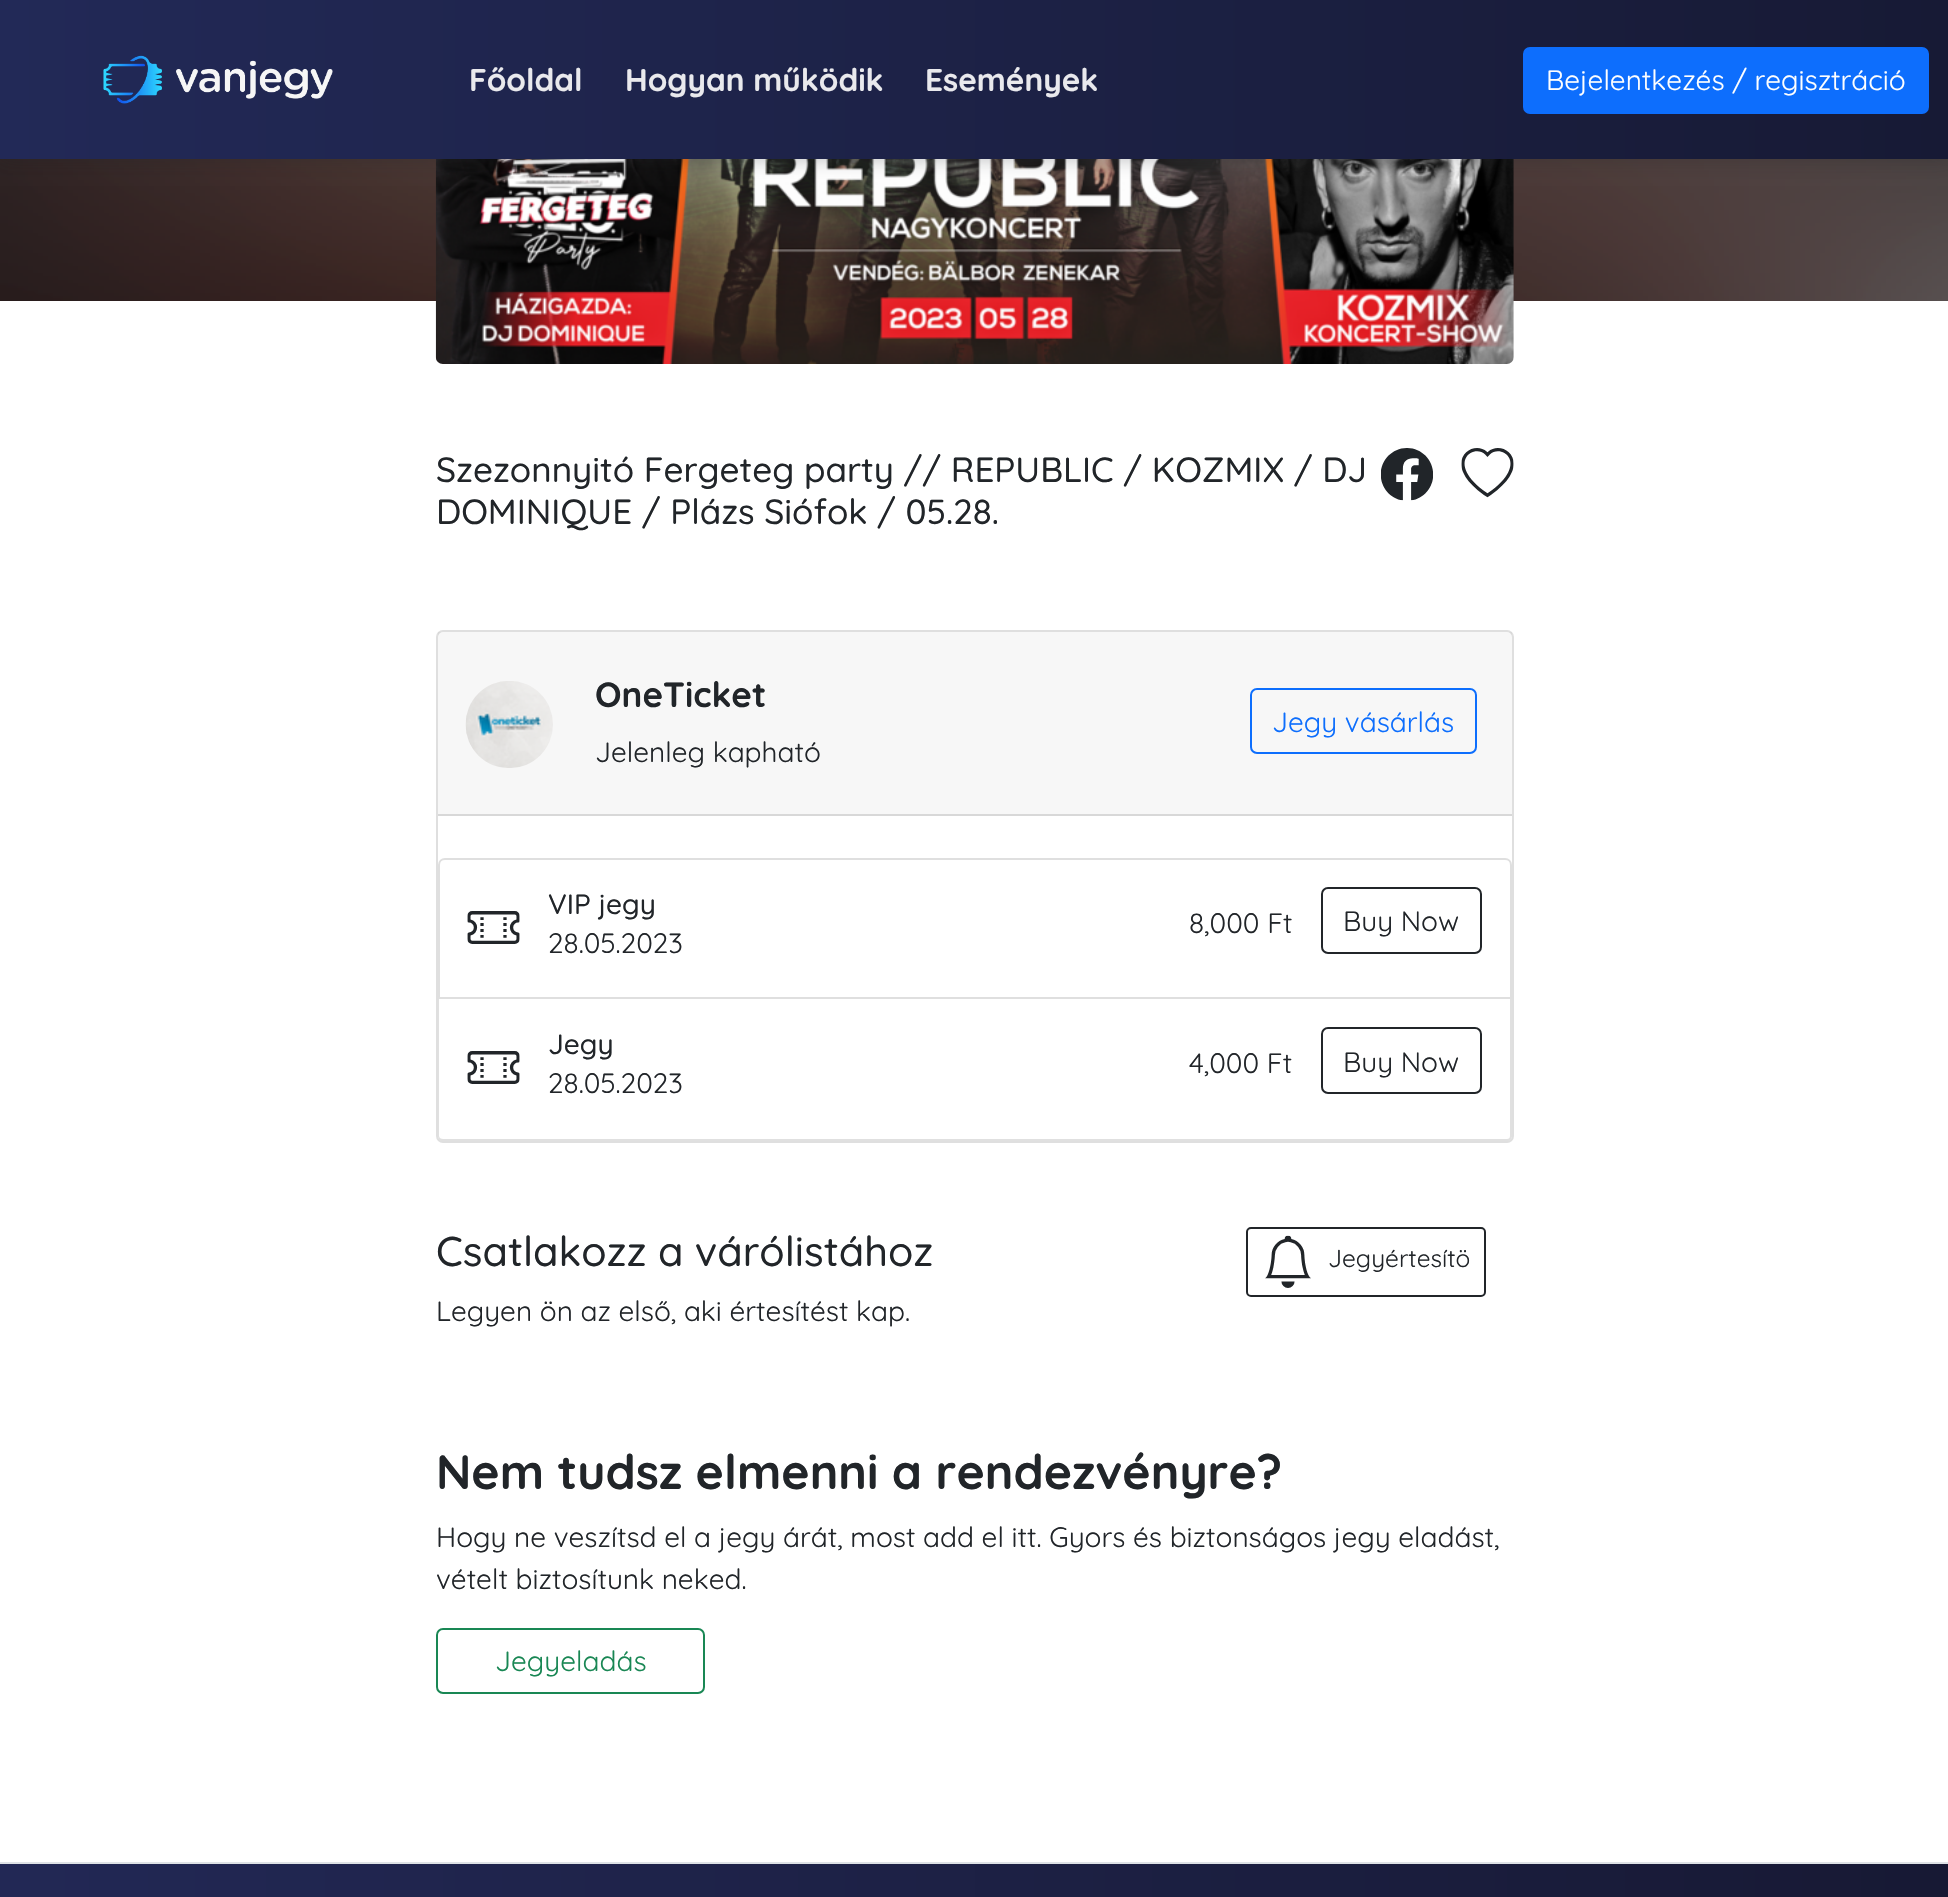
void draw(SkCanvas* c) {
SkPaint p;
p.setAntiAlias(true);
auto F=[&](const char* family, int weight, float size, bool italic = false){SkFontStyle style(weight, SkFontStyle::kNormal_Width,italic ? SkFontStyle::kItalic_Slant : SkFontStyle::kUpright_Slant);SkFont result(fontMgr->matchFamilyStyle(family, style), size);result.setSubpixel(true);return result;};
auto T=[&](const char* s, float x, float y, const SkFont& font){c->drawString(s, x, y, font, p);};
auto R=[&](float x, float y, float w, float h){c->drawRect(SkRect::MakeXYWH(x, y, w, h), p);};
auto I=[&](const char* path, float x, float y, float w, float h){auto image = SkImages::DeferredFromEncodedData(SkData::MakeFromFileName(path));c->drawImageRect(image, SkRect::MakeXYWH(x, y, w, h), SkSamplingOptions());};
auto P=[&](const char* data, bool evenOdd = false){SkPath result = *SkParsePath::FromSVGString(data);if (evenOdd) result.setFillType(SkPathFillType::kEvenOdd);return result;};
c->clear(0xffffffff);
I("2.png",0,159,1948,142);
I("3.png",435,159,1079,205);
p.setColor(0x4d212529);
p.setMaskFilter(SkMaskFilter::MakeBlur(kNormal_SkBlurStyle, 9));
c->drawRect(SkRect::MakeXYWH(0,0,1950,159),p);
p.setMaskFilter(nullptr);
{
const SkColor colors[] = {0xff222957,0xff171a35};
const float stops[] = {0,1};
const SkPoint ends[] = {{0,80}, {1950,80}};
p.setShader(SkGradientShader::MakeLinear(ends, colors, stops, 2, SkTileMode::kClamp));
p.setAlpha(255);
}
R(0,0,1948,159);
I("1.png",103,55,230,49);
auto f1 = F("Quicksand",700,31.5);
p.setShader(nullptr);
p.setColor(0xffe9e9ed);
T("Főoldal",469,91,f1);
T("Hogyan működik",625,91,f1);
T("Események",925,91,f1);
p.setColor(0xff0d6efd);
c->drawRoundRect(SkRect::MakeXYWH(1524,48,404,65),6,6,p);
p.setStroke(true);
p.setStrokeWidth(2);
c->drawRoundRect(SkRect::MakeXYWH(1524,48,404,65),6,6,p);
auto f2 = F("Quicksand",400,28);
p.setStroke(false);
p.setColor(0xffffffff);
T("Bejelentkezés / regisztráció",1546,90,f2);
auto f3 = F("Quicksand",500,35);
p.setColor(0xff212529);
T("Szezonnyitó Fergeteg party // REPUBLIC / KOZMIX / DJ",436,482,f3);
T("DOMINIQUE / Plázs Siófok / 05.28.",436,524,f3);
I("4.png",1381,448,52,53);
I("5.png",1461,448,53,50);
p.setStroke(true);
p.setColor(0xffdfdfdf);
c->drawRoundRect(SkRect::MakeXYWH(437,631,1076,511),6,6,p);
p.setStroke(false);
p.setColor(0x08000000);
R(438,632,1074,182);
p.setColor(0xffd8d8d8);
R(438,814,1074,2);
I("6.png",465,681,88,87);
auto f4 = F("Quicksand",700,35);
p.setColor(0xff212529);
T("OneTicket",595,707,f4);
T("Jelenleg kapható",595,762,f2);
p.setStroke(true);
p.setColor(0xff0d6efd);
c->drawRoundRect(SkRect::MakeXYWH(1251,689,225,64),6,6,p);
p.setStroke(false);
T("Jegy vásárlás",1272,732,f2);
p.setStroke(true);
p.setColor(0xffdfdfdf);
c->drawPath(P("M445 859h1060c3.5 0 6 2.5 6 6v133h-1072v-133c0-3.5 2.5-6 6-6z"),p);
I("7.png",467,911,53,33);
auto f5 = F("Quicksand",500,28);
p.setStroke(false);
p.setColor(0xff212529);
T("VIP jegy",548,914,f5);
T("28.05.2023",548,953,f2);
T("8,000 Ft",1189,933,f2);
p.setStroke(true);
c->drawRoundRect(SkRect::MakeXYWH(1322,888,159,65),6,6,p);
p.setStroke(false);
T("Buy Now",1343,931,f2);
p.setColor(0xffffffff);
c->drawPath(P("M438 999h1074v137c0 3-2 5-5 5h-1064c-3 0-5-2-5-5z"),p);
p.setColor(0x1f000000);
c->drawPath(P("M438 999h1074v137c0 3-2 5-5 5h-1064c-3 0-5-2-5-5zm1 0h1071v137c0 2-1 3-3 3h-1064c-2 0-4-1-4-3z",true),p);
I("7.png",467,1051,53,33);
p.setColor(0xff212529);
T("Jegy",548,1054,f5);
T("28.05.2023",548,1093,f2);
T("4,000 Ft",1189,1073,f2);
p.setStroke(true);
c->drawRoundRect(SkRect::MakeXYWH(1322,1028,159,65),6,6,p);
p.setStroke(false);
T("Buy Now",1343,1072,f2);
auto f6 = F("Quicksand",500,41.5);
T("Csatlakozz a várólistához",436,1266,f6);
T("Legyen ön az első, aki értesítést kap.",436,1321,f2);
p.setStroke(true);
c->drawRoundRect(SkRect::MakeXYWH(1247,1228,238,68),4,4,p);
I("8.png",1265,1235,46,53);
auto f7 = F("Quicksand",400,24.5);
p.setStroke(false);
T("Jegyértesítö",1328,1267,f7);
auto f8 = F("Quicksand",700,48.1);
T("Nem tudsz elmenni a rendezvényre?",436,1489,f8);
T("Hogy ne veszítsd el a jegy árát, most add el itt. Gyors és biztonságos jegy eladást,",436,1547,f2);
T("vételt biztosítunk neked.",436,1589,f2);
p.setStroke(true);
p.setColor(0xff198754);
c->drawRoundRect(SkRect::MakeXYWH(437,1629,267,64),6,6,p);
p.setStroke(false);
T("Jegyeladás",495,1671,f2);
{
const SkColor colors[] = {0xff222855,0xff171934};
const float stops[] = {0,1};
const SkPoint ends[] = {{0,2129}, {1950,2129}};
p.setShader(SkGradientShader::MakeLinear(ends, colors, stops, 2, SkTileMode::kClamp));
p.setAlpha(255);
}
R(0,1864,1948,33);
p.setShader(nullptr);
p.setColor(0xffdee2e6);
R(0,1862,1948,2);
}
